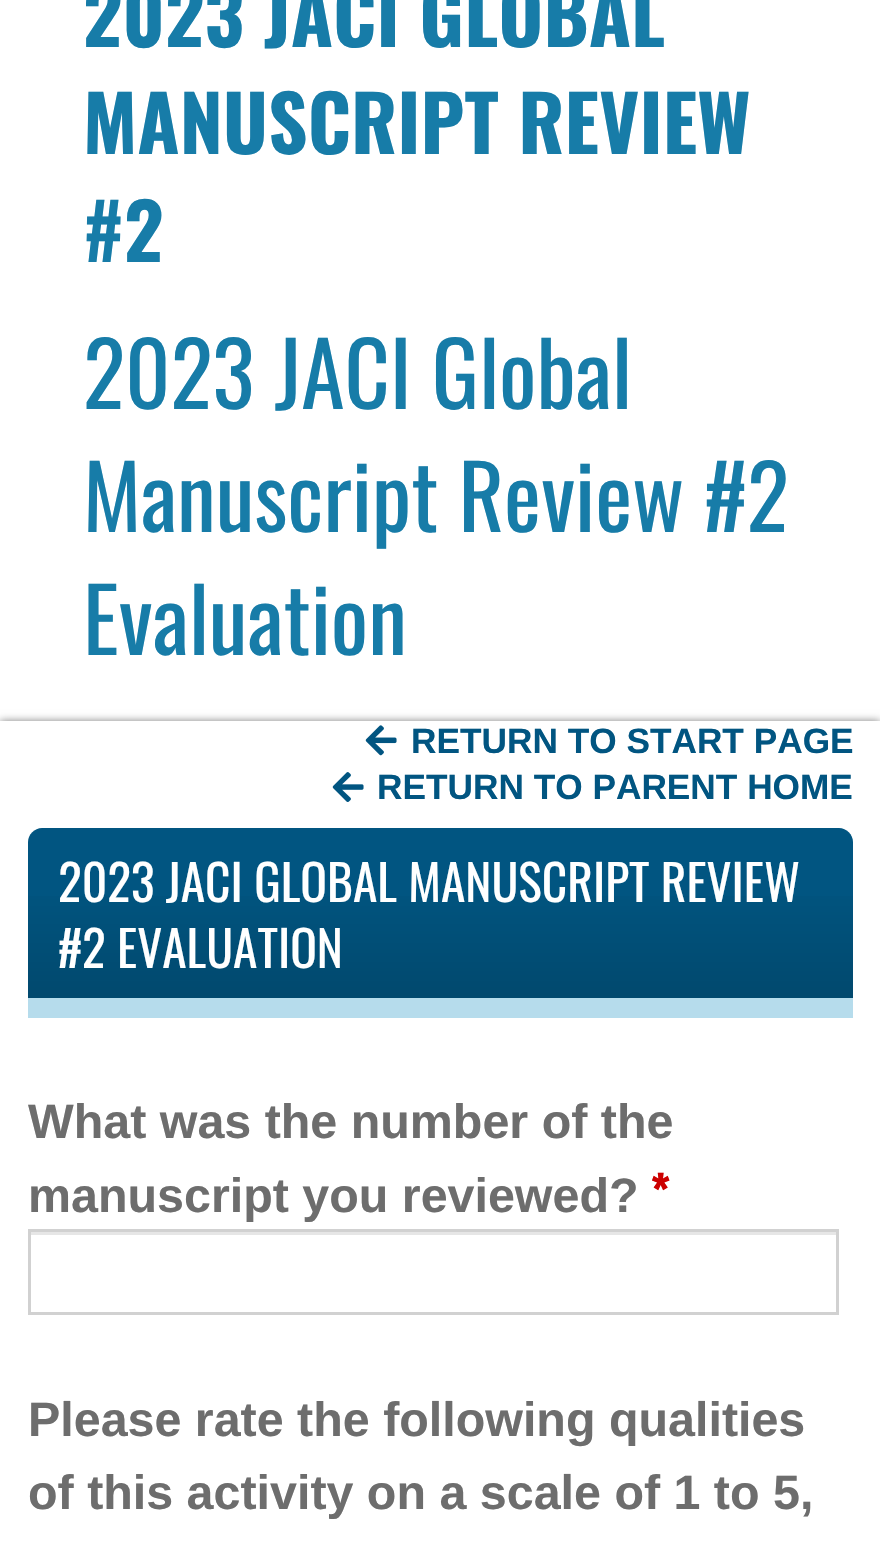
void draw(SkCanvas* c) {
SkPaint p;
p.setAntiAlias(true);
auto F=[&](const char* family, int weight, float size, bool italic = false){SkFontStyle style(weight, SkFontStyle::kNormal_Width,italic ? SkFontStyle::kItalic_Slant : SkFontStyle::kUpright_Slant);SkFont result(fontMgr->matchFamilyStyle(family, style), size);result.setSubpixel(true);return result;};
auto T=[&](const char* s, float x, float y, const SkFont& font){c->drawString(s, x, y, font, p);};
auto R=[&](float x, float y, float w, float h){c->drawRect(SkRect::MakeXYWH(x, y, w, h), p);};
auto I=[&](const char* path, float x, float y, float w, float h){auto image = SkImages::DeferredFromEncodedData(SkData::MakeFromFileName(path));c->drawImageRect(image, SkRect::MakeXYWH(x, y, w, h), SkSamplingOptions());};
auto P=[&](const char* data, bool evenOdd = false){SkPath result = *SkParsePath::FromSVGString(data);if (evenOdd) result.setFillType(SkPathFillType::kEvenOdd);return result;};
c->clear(0xffffffff);
auto f1 = F("Oswald",700,77);
p.setColor(0xff177ca8);
T("2023 JACI GLOBAL",83,47,f1);
T("MANUSCRIPT REVIEW",83,154,f1);
T("#2",83,262,f1);
auto f2 = F("Oswald",400,88);
T("2023 JACI Global",83,409,f2);
T("Manuscript Review #2",83,532,f2);
T("Evaluation",83,655,f2);
p.setColor(0x80000000);
p.setMaskFilter(SkMaskFilter::MakeBlur(kNormal_SkBlurStyle, 4));
c->drawRect(SkRect::MakeXYWH(0,721,880,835),p);
p.setMaskFilter(nullptr);
p.setColor(0xffffffff);
R(0,721,880,823);
I("1.png",365,725,32,31);
auto f3 = F("Liberation Sans",700,35.25);
p.setColor(0xff015581);
T("RETURN TO START PAGE",411,753,f3);
I("2.png",332,772,32,30);
T("RETURN TO PARENT HOME",377,799,f3);
c->drawPath(P("M42 828h797c7.5 0 14 6.5 14 14v176h-825v-176c0-7.5 6.5-14 14-14z"),p);
{
const SkColor colors[] = {0x26000000,0x00000000};
const float stops[] = {0,.7};
const SkPoint ends[] = {{440,998}, {440,828}};
p.setShader(SkGradientShader::MakeLinear(ends, colors, stops, 2, SkTileMode::kClamp));
p.setAlpha(255);
}
R(28,896,825,102);
p.setShader(nullptr);
p.setColor(0xffb6dcec);
R(28,998,825,20);
auto f4 = F("Oswald",400,49.5);
p.setColor(0xffffffff);
T("2023 JACI GLOBAL MANUSCRIPT REVIEW",58,902,f4);
T("#2 EVALUATION",58,968,f4);
auto f5 = F("Liberation Sans",700,48.4);
p.setColor(0xff6d6d6d);
T("What was the number of the",28,1138,f5);
T("manuscript you reviewed?",28,1212,f5);
auto f6 = F("Oswald",700,48.4);
p.setColor(0xffcc0000);
T("*",650,1212,f6);
p.setColor(0xffe6e6e6);
R(30,1232,806,3);
p.setStroke(true);
p.setStrokeWidth(3);
p.setColor(0xffd1d1d1);
c->drawRect(SkRect::MakeXYWH(29.5,1230.5,808,83),p);
p.setStroke(false);
p.setColor(0xff6d6d6d);
T("Please rate the following qualities",28,1436,f5);
T("of this activity on a scale of 1 to 5,",28,1509,f5);
}
